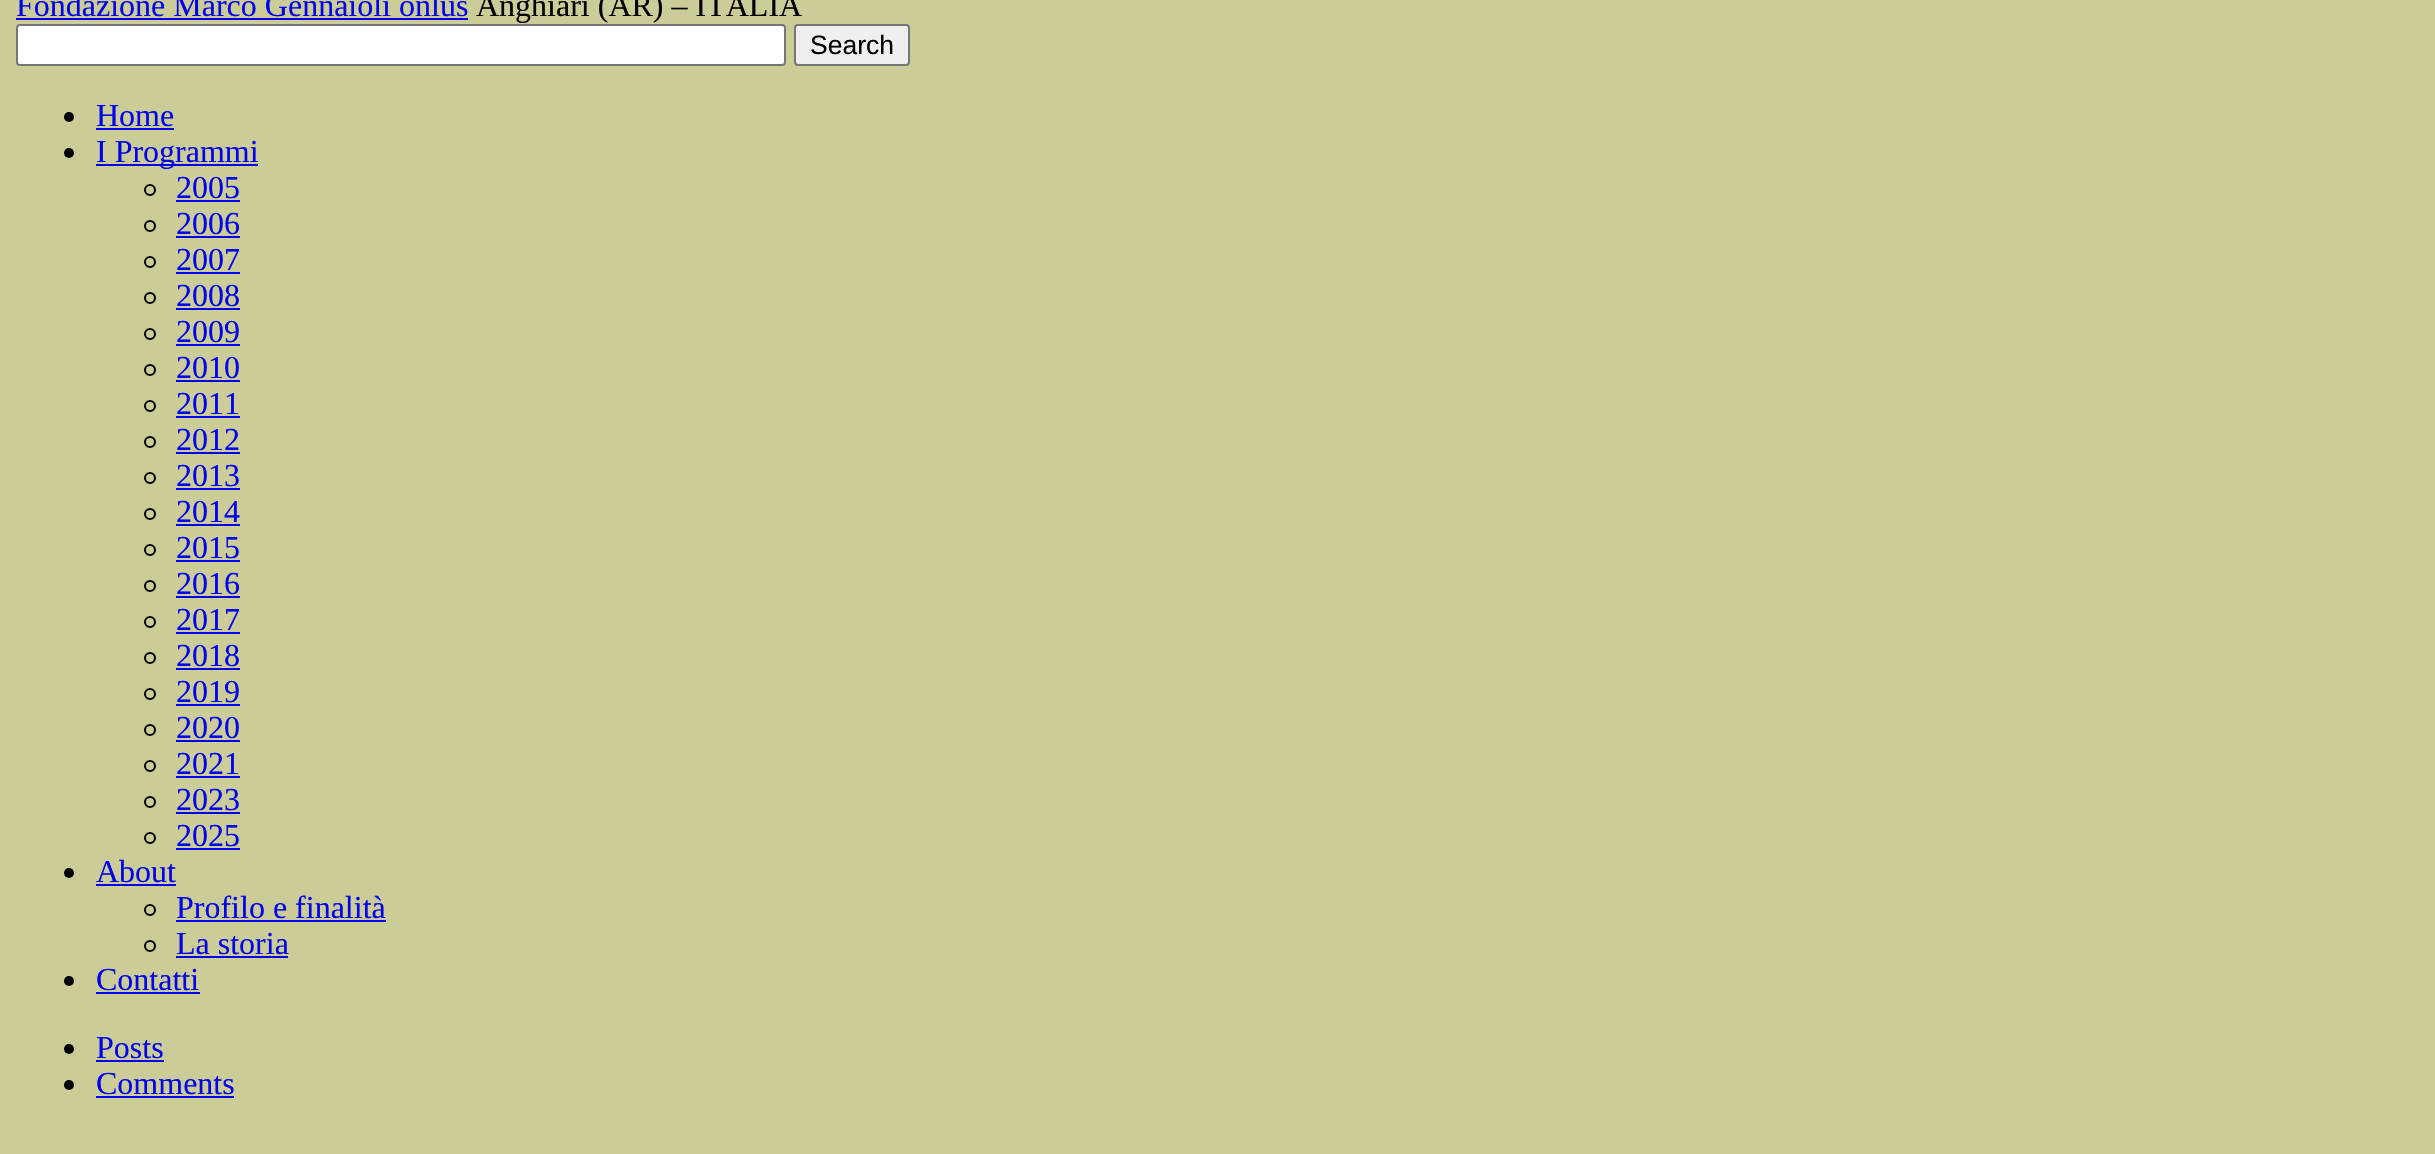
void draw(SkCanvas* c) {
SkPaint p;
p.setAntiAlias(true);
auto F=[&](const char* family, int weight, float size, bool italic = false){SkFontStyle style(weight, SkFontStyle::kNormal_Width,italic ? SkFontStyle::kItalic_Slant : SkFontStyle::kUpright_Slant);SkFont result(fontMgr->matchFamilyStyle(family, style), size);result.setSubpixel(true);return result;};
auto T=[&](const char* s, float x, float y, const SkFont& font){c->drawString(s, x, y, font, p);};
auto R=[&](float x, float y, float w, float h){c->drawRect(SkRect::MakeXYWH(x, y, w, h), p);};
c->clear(0xffcccc99);
auto f1 = F("Liberation Serif",400,32);
p.setColor(0xff0000ee);
T("Fondazione Marco Gennaioli onlus",16,16,f1);
R(16,18,452,2);
p.setColor(0xff000000);
T("Anghiari (AR) – ITALIA",476,16,f1);
p.setColor(0xffffffff);
c->drawRoundRect(SkRect::MakeXYWH(17,25,768,40),3,3,p);
p.setStroke(true);
p.setStrokeWidth(2);
p.setColor(0xff767676);
c->drawRoundRect(SkRect::MakeXYWH(17,25,768,40),3,3,p);
p.setStroke(false);
p.setColor(0xffefefef);
c->drawRoundRect(SkRect::MakeXYWH(795,25,114,40),3,3,p);
p.setStroke(true);
p.setColor(0xff767676);
c->drawRoundRect(SkRect::MakeXYWH(795,25,114,40),3,3,p);
auto f2 = F("Liberation Sans",400,26.5);
p.setStroke(false);
p.setColor(0xff000000);
T("Search",810,54,f2);
c->drawCircle(69,117,5,p);
p.setColor(0xff0000ee);
T("Home",96,126,f1);
R(96,128,78,2);
p.setColor(0xff000000);
c->drawCircle(69,153,5,p);
p.setColor(0xff0000ee);
R(96,164,162,2);
T("I Programmi",96,162,f1);
p.setStroke(true);
p.setColor(0xff000000);
c->drawCircle(150,190,5,p);
p.setStroke(false);
p.setColor(0xff0000ee);
T("2005",176,198,f1);
R(176,200,64,2);
p.setStroke(true);
p.setColor(0xff000000);
c->drawCircle(150,226,5,p);
p.setStroke(false);
p.setColor(0xff0000ee);
T("2006",176,234,f1);
R(176,236,64,2);
p.setStroke(true);
p.setColor(0xff000000);
c->drawCircle(150,262,5,p);
p.setStroke(false);
p.setColor(0xff0000ee);
T("2007",176,270,f1);
R(176,272,64,2);
p.setStroke(true);
p.setColor(0xff000000);
c->drawCircle(150,298,5,p);
p.setStroke(false);
p.setColor(0xff0000ee);
T("2008",176,306,f1);
R(176,308,64,2);
p.setStroke(true);
p.setColor(0xff000000);
c->drawCircle(150,334,5,p);
p.setStroke(false);
p.setColor(0xff0000ee);
T("2009",176,342,f1);
R(176,344,64,2);
p.setStroke(true);
p.setColor(0xff000000);
c->drawCircle(150,370,5,p);
p.setStroke(false);
p.setColor(0xff0000ee);
T("2010",176,378,f1);
R(176,380,64,2);
p.setStroke(true);
p.setColor(0xff000000);
c->drawCircle(150,406,5,p);
p.setStroke(false);
p.setColor(0xff0000ee);
T("2011",176,414,f1);
R(176,416,64,2);
p.setStroke(true);
p.setColor(0xff000000);
c->drawCircle(150,442,5,p);
p.setStroke(false);
p.setColor(0xff0000ee);
T("2012",176,450,f1);
R(176,452,64,2);
p.setStroke(true);
p.setColor(0xff000000);
c->drawCircle(150,478,5,p);
p.setStroke(false);
p.setColor(0xff0000ee);
T("2013",176,486,f1);
R(176,488,64,2);
p.setStroke(true);
p.setColor(0xff000000);
c->drawCircle(150,514,5,p);
p.setStroke(false);
p.setColor(0xff0000ee);
T("2014",176,522,f1);
R(176,524,64,2);
p.setStroke(true);
p.setColor(0xff000000);
c->drawCircle(150,550,5,p);
p.setStroke(false);
p.setColor(0xff0000ee);
T("2015",176,558,f1);
R(176,560,64,2);
p.setStroke(true);
p.setColor(0xff000000);
c->drawCircle(150,586,5,p);
p.setStroke(false);
p.setColor(0xff0000ee);
T("2016",176,594,f1);
R(176,596,64,2);
p.setStroke(true);
p.setColor(0xff000000);
c->drawCircle(150,622,5,p);
p.setStroke(false);
p.setColor(0xff0000ee);
T("2017",176,630,f1);
R(176,632,64,2);
p.setStroke(true);
p.setColor(0xff000000);
c->drawCircle(150,658,5,p);
p.setStroke(false);
p.setColor(0xff0000ee);
T("2018",176,666,f1);
R(176,668,64,2);
p.setStroke(true);
p.setColor(0xff000000);
c->drawCircle(150,694,5,p);
p.setStroke(false);
p.setColor(0xff0000ee);
T("2019",176,702,f1);
R(176,704,64,2);
p.setStroke(true);
p.setColor(0xff000000);
c->drawCircle(150,730,5,p);
p.setStroke(false);
p.setColor(0xff0000ee);
T("2020",176,738,f1);
R(176,740,64,2);
p.setStroke(true);
p.setColor(0xff000000);
c->drawCircle(150,766,5,p);
p.setStroke(false);
p.setColor(0xff0000ee);
T("2021",176,774,f1);
R(176,776,64,2);
p.setStroke(true);
p.setColor(0xff000000);
c->drawCircle(150,802,5,p);
p.setStroke(false);
p.setColor(0xff0000ee);
T("2023",176,810,f1);
R(176,812,64,2);
p.setStroke(true);
p.setColor(0xff000000);
c->drawCircle(150,838,5,p);
p.setStroke(false);
p.setColor(0xff0000ee);
T("2025",176,846,f1);
R(176,848,64,2);
p.setColor(0xff000000);
c->drawCircle(69,873,5,p);
p.setColor(0xff0000ee);
T("About",96,882,f1);
R(96,884,80,2);
p.setStroke(true);
p.setColor(0xff000000);
c->drawCircle(150,910,5,p);
p.setStroke(false);
p.setColor(0xff0000ee);
T("Profilo e finalità",176,918,f1);
R(176,920,210,2);
p.setStroke(true);
p.setColor(0xff000000);
c->drawCircle(150,946,5,p);
p.setStroke(false);
p.setColor(0xff0000ee);
T("La storia",176,954,f1);
R(176,956,112,2);
p.setColor(0xff000000);
c->drawCircle(69,981,5,p);
p.setColor(0xff0000ee);
T("Contatti",96,990,f1);
R(96,992,104,2);
p.setColor(0xff000000);
c->drawCircle(69,1049,5,p);
p.setColor(0xff0000ee);
T("Posts",96,1058,f1);
R(96,1060,68,2);
p.setColor(0xff000000);
c->drawCircle(69,1085,5,p);
p.setColor(0xff0000ee);
T("Comments",96,1094,f1);
R(96,1096,138,2);
}
